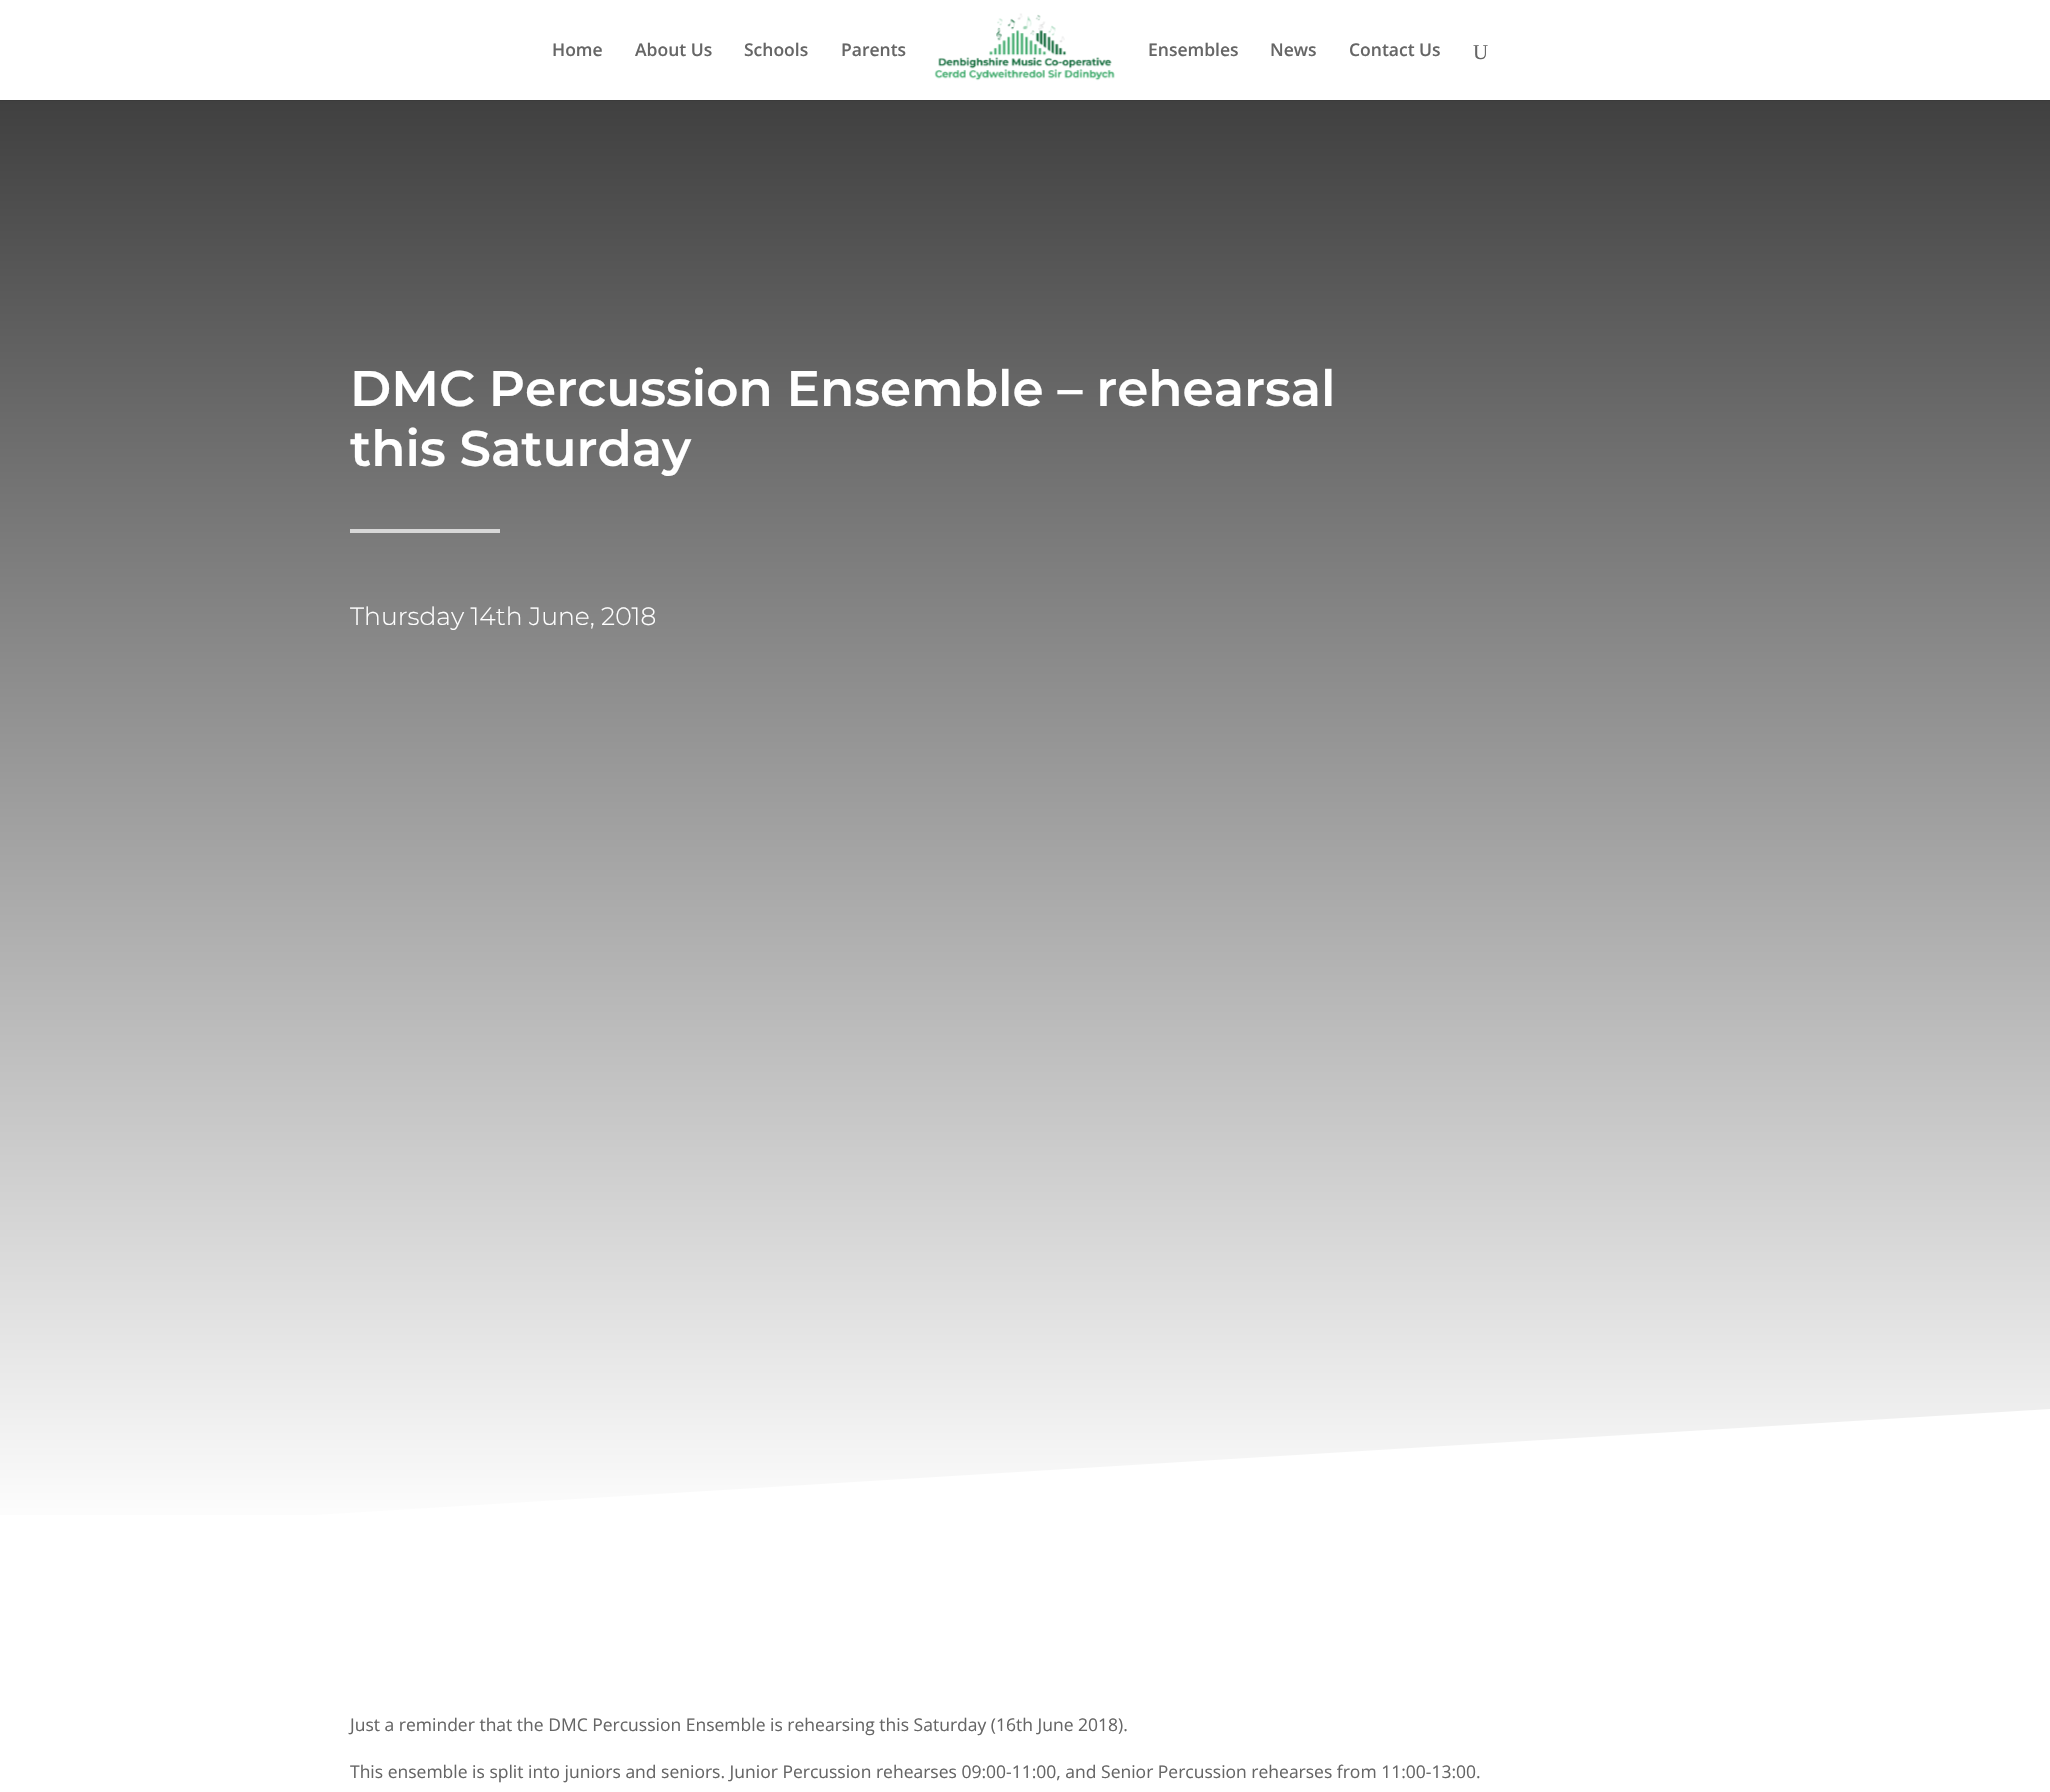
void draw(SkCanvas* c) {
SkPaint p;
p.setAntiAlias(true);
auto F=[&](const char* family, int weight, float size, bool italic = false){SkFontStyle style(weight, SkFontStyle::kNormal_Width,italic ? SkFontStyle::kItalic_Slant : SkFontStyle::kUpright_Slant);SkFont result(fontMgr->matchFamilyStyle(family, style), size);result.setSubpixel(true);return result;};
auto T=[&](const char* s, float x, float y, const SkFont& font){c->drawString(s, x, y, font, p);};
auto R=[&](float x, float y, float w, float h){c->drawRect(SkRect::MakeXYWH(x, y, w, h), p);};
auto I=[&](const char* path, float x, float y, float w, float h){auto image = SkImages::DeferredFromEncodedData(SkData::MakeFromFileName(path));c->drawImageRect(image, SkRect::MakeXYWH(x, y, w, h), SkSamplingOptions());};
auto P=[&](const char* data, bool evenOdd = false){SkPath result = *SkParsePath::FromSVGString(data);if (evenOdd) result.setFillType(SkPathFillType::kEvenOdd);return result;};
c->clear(0xffffffff);
p.setColor(0xff3a3a3a);
R(0,100,2050,1);
auto f1 = F("Open Sans",600,17.5);
p.setColor(0xff666666);
T("Home",552,56,f1);
T("About Us",635,56,f1);
T("Schools",744,56,f1);
T("Parents",841,56,f1);
I("1.png",934,13,181,68);
T("Ensembles",1148,56,f1);
T("News",1270,56,f1);
T("Contact Us",1349,56,f1);
auto f2 = F("Liberation Serif",400,21);
T("U",1473,59,f2);
{
const SkColor colors[] = {0xff404040,0xffffffff};
const float stops[] = {0,1};
const SkPoint ends[] = {{1025,100}, {1025,1534}};
p.setShader(SkGradientShader::MakeLinear(ends, colors, stops, 2, SkTileMode::kClamp));
p.setAlpha(255);
}
R(0,101,2050,1414);
auto f3 = F("Montserrat",100,50);
p.setShader(nullptr);
p.setColor(0xffffffff);
T("DMC Percussion Ensemble – rehearsal",350,406,f3);
T("this Saturday",350,466,f3);
p.setColor(0xffd7d7d7);
R(350,529,150,4);
auto f4 = F("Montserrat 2",100,25);
p.setColor(0xffffffff);
T("Thursday 14th June, 2018",350,625,f4);
c->drawPath(P("M2050 1409v125h-2050z"),p);
auto f5 = F("Open Sans",400,17.5);
p.setColor(0xff666666);
T("Just a reminder that the DMC Percussion Ensemble is rehearsing this Saturday (16th June 2018).",350,1731,f5);
T("This ensemble is split into juniors and seniors. Junior Percussion rehearses 09:00-11:00, and Senior Percussion rehearses from 11:00-13:00.",350,1778,f5);
}
